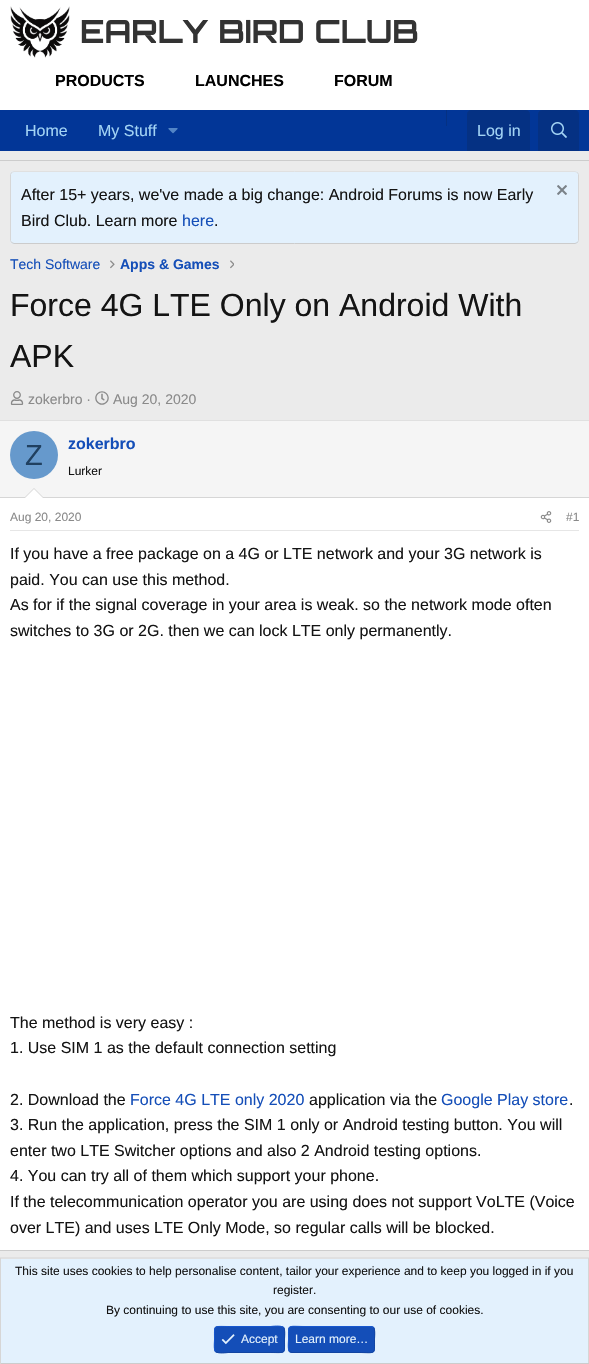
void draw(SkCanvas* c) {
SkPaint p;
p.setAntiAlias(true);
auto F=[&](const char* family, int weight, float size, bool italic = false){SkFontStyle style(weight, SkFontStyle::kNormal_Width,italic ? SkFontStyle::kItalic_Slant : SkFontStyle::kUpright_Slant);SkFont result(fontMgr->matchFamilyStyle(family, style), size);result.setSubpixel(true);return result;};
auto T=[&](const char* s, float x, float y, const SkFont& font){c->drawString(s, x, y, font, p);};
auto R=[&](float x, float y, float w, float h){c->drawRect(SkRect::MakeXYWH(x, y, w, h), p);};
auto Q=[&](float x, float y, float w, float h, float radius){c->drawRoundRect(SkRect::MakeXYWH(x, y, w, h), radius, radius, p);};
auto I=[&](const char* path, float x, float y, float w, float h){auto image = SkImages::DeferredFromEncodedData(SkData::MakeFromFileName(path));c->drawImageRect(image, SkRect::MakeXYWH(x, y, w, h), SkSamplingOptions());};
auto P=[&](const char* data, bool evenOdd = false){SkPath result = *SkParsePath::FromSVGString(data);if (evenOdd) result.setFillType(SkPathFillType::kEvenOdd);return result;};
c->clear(0xffebebeb);
p.setColor(0xffffffff);
R(0,0,589,110);
I("1.png",10,6,60,52);
auto f1 = F("Orbitron",700,32);
p.setColor(0xff333333);
T("EARLY BIRD CLUB",80,43,f1);
auto f2 = F("Liberation Sans",700,16);
p.setColor(0xff000000);
T("PRODUCTS",55,86,f2);
T("LAUNCHES",195,86,f2);
T("FORUM",334,86,f2);
p.setColor(0xff023697);
R(0,110,589,41);
auto f3 = F("Liberation Sans",400,16);
p.setColor(0xffa3d4f5);
T("Home",25,136,f3);
T("My Stuff",98,136,f3);
I("2.png",168,128,10,6);
p.setColor(0xff053183);
R(446,110,1,16);
c->drawPath(P("M471 110h55c2 0 4 2 4 4v37h-63v-37c0-2 2-4 4-4z"),p);
p.setColor(0xffa3d4f5);
T("Log in",477,136,f3);
p.setColor(0xff053183);
c->drawPath(P("M542 110h33c2 0 4 2 4 4v37h-41v-37c0-2 2-4 4-4z"),p);
I("3.png",551,122,16,16);
p.setColor(0xffcccccc);
R(0,160,589,1);
p.setColor(0xffe3f1fd);
Q(10,171,569,73,4);
p.setStroke(true);
p.setStrokeWidth(1);
p.setColor(0xffe0e0e0);
c->drawPath(P("M11.5 172.5l2.5-1h561l2.5 1"),p);
p.setColor(0xffd6d6d6);
c->drawPath(P("M577.5 172.5l1 2v66l-1 2"),p);
p.setColor(0xffcccccc);
c->drawPath(P("M577.5 242.5l-2.5 1h-561l-2.5-1"),p);
p.setColor(0xffd6d6d6);
c->drawPath(P("M11.5 242.5l-1-2v-66l1-2"),p);
p.setStroke(false);
p.setColor(0xff141414);
T("After 15+ years, we've made a big change: Android Forums is now Early",21,200,f3);
I("4.png",557,185,10,10);
T("Bird Club. Learn more",21,226,f3);
p.setColor(0xff144eb8);
T("here",182,226,f3);
p.setColor(0xff141414);
T(".",214,226,f3);
auto f4 = F("Liberation Sans",400,14);
p.setColor(0xff144eb8);
T("Tech Software",10,269,f4);
I("5.png",110,260,5,9);
auto f5 = F("Liberation Sans",700,14);
T("Apps & Games",120,269,f5);
I("6.png",230,260,4,9);
auto f6 = F("Liberation Sans",400,32);
p.setColor(0xff141414);
T("Force 4G LTE Only on Android With",10,316,f6);
T("APK",10,367,f6);
I("7.png",10,391,14,14);
p.setColor(0xff8a8a8a);
T("zokerbro ·",28,404,f4);
I("8.png",95,391,14,14);
T("Aug 20, 2020",113,404,f4);
p.setColor(0xffffffff);
R(0,498,589,752);
p.setColor(0xffe0e0e0);
R(0,420,589,1);
p.setColor(0xffcccccc);
R(0,1250,589,1);
p.setColor(0xfff5f5f5);
R(0,421,589,76);
p.setColor(0xffd6d6d6);
R(0,497,589,1);
p.setColor(0xff6699cc);
c->drawCircle(34,455,24,p);
auto f7 = F("Liberation Sans",400,29);
p.setColor(0xff204060);
T("Z",25,465,f7);
p.setColor(0xff144eb8);
T("zokerbro",68,449,f2);
auto f8 = F("Liberation Sans",400,12);
p.setColor(0xff141414);
T("Lurker",68,475,f8);
p.setColor(0xffd6d6d6);
c->drawPath(P("M44 498h-20l10-10z"),p);
p.setColor(0xffffffff);
c->drawPath(P("M43 498h-18l9-9z"),p);
p.setColor(0xffe6e6e6);
R(10,530,569,1);
p.setColor(0xff8a8a8a);
T("Aug 20, 2020",10,521,f8);
I("9.png",540,511,12,12);
T("#1",566,521,f8);
p.setColor(0xff141414);
T("If you have a free package on a 4G or LTE network and your 3G network is",10,559,f3);
T("paid. You can use this method.",10,585,f3);
T("As for if the signal coverage in your area is weak. so the network mode often",10,610,f3);
T("switches to 3G or 2G. then we can lock LTE only permanently.",10,636,f3);
T("The method is very easy :",10,1028,f3);
T("1. Use SIM 1 as the default connection setting",10,1053,f3);
T("2. Download the",10,1105,f3);
p.setColor(0xff144eb8);
T("Force 4G LTE only 2020",130,1105,f3);
p.setColor(0xff141414);
T("application via the",309,1105,f3);
p.setColor(0xff144eb8);
T("Google Play store",441,1105,f3);
p.setColor(0xff141414);
T(".",569,1105,f3);
T("3. Run the application, press the SIM 1 only or Android testing button. You will",10,1130,f3);
T("enter two LTE Switcher options and also 2 Android testing options.",10,1156,f3);
T("4. You can try all of them which support your phone.",10,1181,f3);
T("If the telecommunication operator you are using does not support VoLTE (Voice",10,1207,f3);
T("over LTE) and uses LTE Only Mode, so regular calls will be blocked.",10,1233,f3);
p.setColor(0xffe0e0e0);
R(0,1257,589,2);
p.setColor(0xffe3f1fd);
R(1,1259,587,104);
p.setColor(0xffd6d6d6);
R(588,1258,1,106);
p.setColor(0xffcccccc);
R(0,1363,589,1);
p.setColor(0xffd6d6d6);
R(0,1258,1,106);
p.setColor(0xff141414);
T("This site uses cookies to help personalise content, tailor your experience and to keep you logged in if you",15,1275,f8);
T("register.",273,1294,f8);
T("By continuing to use this site, you are consenting to our use of cookies.",106,1314,f8);
p.setColor(0xff144eb8);
Q(214,1326,71,27,4);
p.setStroke(true);
p.setColor(0xff1244a1);
c->drawPath(P("M283.5 1327.5c2 2 1 9.5 1 12c0 15 1.5 13-14 13h-42c-1 0-10.5 1.5-13-1"),p);
p.setColor(0xff1757cf);
c->drawPath(P("M215.5 1351.5c-2-2-1-9.5-1-12c0-15-1.5-13 14-13h42c1 0 10.5-1.5 13 1"),p);
I("10.png",221,1334,14,11);
p.setStroke(false);
p.setColor(0xffe3f1fd);
T("Accept",241,1343,f8);
p.setColor(0xff144eb8);
Q(288,1326,87,27,4);
p.setStroke(true);
p.setColor(0xff1244a1);
c->drawPath(P("M373.5 1327.5c2 2 1 9.5 1 12c0 16 1.5 13-16.5 13h-66l-2.5-1"),p);
p.setColor(0xff1757cf);
c->drawPath(P("M289.5 1351.5c-2-2-1-9.5-1-12c0-16-1.5-13 16.5-13h66l2.5 1"),p);
p.setStroke(false);
p.setColor(0xffe3f1fd);
T("Learn more…",295,1343,f8);
}
